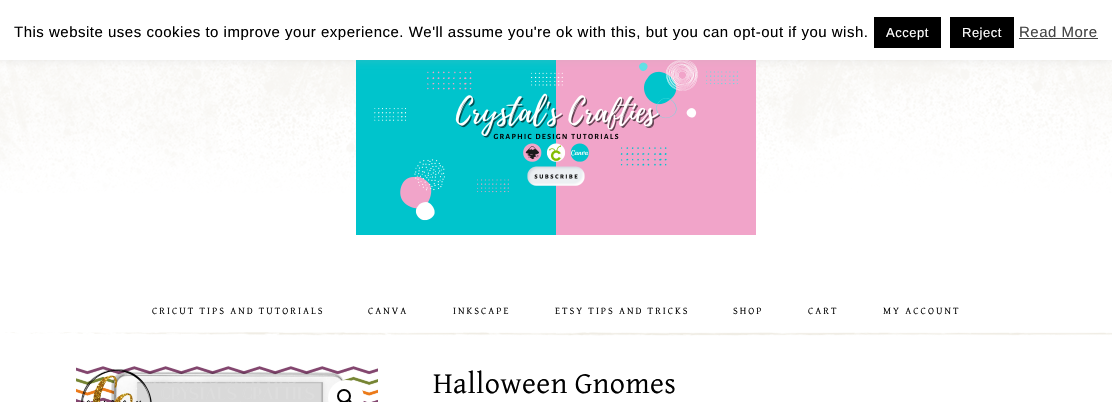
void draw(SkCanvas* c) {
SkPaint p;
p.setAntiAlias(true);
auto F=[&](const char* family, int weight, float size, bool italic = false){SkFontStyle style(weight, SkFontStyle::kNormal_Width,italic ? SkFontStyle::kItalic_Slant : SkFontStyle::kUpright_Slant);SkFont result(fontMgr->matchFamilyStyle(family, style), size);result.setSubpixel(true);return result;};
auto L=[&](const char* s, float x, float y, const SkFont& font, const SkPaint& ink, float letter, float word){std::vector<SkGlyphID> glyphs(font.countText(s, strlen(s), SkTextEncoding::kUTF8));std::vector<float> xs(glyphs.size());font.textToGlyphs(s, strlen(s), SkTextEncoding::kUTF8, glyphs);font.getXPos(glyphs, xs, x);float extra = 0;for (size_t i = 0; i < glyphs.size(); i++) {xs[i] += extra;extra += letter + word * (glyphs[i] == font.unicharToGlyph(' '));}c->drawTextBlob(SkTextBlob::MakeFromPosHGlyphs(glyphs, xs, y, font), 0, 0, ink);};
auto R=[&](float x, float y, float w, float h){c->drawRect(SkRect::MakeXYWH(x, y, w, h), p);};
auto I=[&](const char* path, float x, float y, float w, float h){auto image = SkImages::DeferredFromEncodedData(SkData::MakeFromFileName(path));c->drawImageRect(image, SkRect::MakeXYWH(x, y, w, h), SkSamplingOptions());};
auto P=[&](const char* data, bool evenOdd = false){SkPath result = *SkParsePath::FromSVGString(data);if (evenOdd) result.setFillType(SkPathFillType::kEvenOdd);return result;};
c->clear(0xffffffff);
I("1.png",0,60,1112,133);
I("2.png",356,60,400,175);
p.setColor(0x4dacabab);
p.setMaskFilter(SkMaskFilter::MakeBlur(kNormal_SkBlurStyle, 5));
c->drawRect(SkRect::MakeXYWH(0,-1,1112,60),p);
p.setMaskFilter(nullptr);
p.setColor(0xffffffff);
R(0,0,1112,60);
auto f1 = F("Arimo",400,15);
p.setColor(0xff000000);
L("This website uses cookies to improve your experience. We'll assume you're ok with this, but you can opt-out if you wish.",14,37,f1,p,.5,0);
R(874,17,67,31);
auto f2 = F("Arimo",400,13);
p.setColor(0xffffffff);
L("Accept",886,37,f2,p,.5,0);
p.setColor(0xff000000);
R(950,17,64,31);
p.setColor(0xffffffff);
L("Reject",962,37,f2,p,.5,0);
p.setColor(0xff444444);
L("Read More",1019,37,f1,p,.5,0);
R(1019,38,79,1);
I("3.png",5,332,1107,4);
auto f3 = F("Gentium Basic",400,10);
p.setColor(0xff000000);
L("CRICUT TIPS AND TUTORIALS",152,314,f3,p,2,0);
L("CANVA",368,314,f3,p,2,0);
L("INKSCAPE",453,314,f3,p,2,0);
L("ETSY TIPS AND TRICKS",555,314,f3,p,2,0);
L("SHOP",733,314,f3,p,2,0);
L("CART",808,314,f3,p,2,0);
L("MY ACCOUNT",883,314,f3,p,2,0);
I("4.png",76,366,302,36);
p.setColor(0xffffffff);
c->drawCircle(346,398,18,p);
p.setStroke(true);
p.setStrokeWidth(2);
p.setColor(0xff000000);
c->drawCircle(344,396,6,p);
p.setStroke(false);
c->drawPath(P("M348.5 400c1.5-1 3 1.5 3.5 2.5c.5 .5 3.5 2 2 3.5c-1 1-2.5-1.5-3.5-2.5c-.5-.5-3-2-2-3.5z"),p);
auto f4 = F("Gentium Basic",400,30);
L("Halloween Gnomes",433,393,f4,p,.5,0);
}
